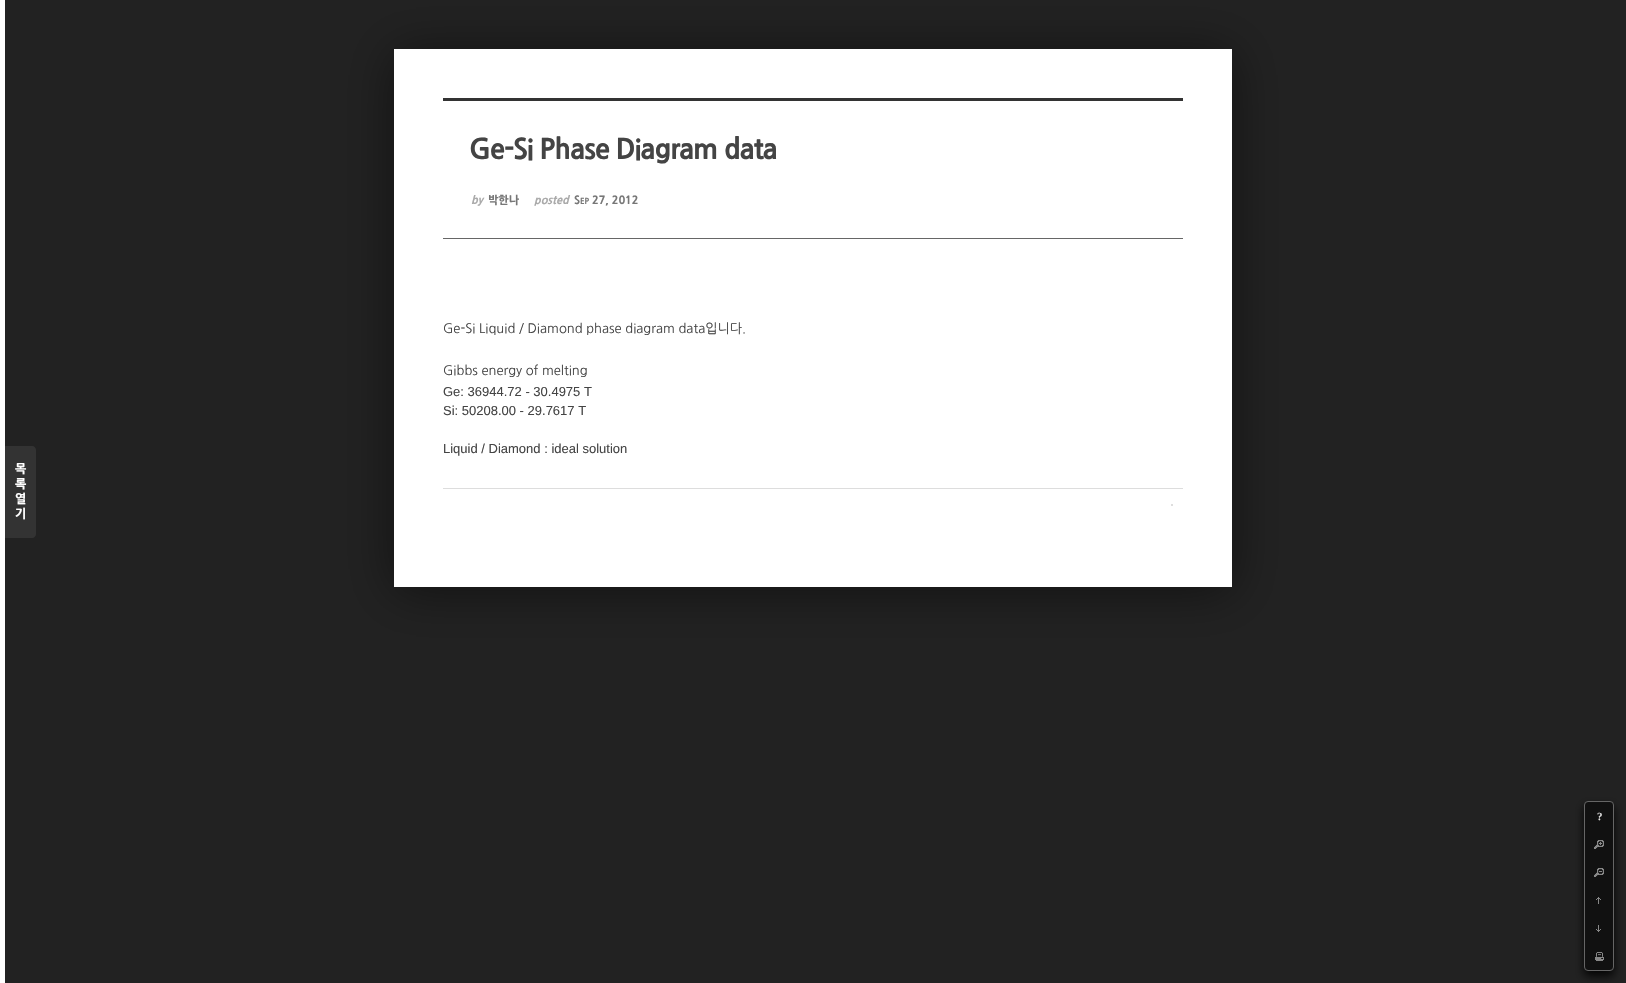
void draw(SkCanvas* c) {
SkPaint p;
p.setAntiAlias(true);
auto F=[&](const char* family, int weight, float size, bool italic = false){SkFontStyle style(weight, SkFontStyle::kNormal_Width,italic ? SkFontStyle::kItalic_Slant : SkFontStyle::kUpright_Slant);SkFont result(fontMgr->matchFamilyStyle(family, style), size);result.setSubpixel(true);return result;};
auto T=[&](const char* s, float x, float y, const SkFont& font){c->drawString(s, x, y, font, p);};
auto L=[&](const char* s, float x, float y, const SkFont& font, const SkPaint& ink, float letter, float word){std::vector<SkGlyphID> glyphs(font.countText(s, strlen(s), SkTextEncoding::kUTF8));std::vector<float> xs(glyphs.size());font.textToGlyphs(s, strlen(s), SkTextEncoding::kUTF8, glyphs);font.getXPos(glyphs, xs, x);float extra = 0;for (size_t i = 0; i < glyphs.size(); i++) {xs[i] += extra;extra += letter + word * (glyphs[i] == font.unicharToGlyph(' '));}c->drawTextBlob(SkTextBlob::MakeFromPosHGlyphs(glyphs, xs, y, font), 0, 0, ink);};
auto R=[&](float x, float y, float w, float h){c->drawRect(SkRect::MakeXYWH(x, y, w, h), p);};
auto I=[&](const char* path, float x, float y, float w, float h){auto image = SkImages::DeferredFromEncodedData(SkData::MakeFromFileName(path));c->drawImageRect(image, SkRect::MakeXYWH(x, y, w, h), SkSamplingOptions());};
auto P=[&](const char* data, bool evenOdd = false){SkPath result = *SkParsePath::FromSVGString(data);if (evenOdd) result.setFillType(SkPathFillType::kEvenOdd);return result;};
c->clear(0xff222222);
p.setColor(0x80000000);
p.setMaskFilter(SkMaskFilter::MakeBlur(kNormal_SkBlurStyle, 24));
c->drawRect(SkRect::MakeXYWH(394,53,838,538),p);
p.setMaskFilter(nullptr);
p.setColor(0xffffffff);
R(394,49,838,538);
R(0,0,5,983);
p.setColor(0xff333333);
c->drawPath(P("M5 446h27c2 0 4 2 4 4v84c0 2-2 4-4 4h-27z"),p);
auto f1 = F("NanumGothic",800,12);
p.setColor(0xffffffff);
T("목",15,473,f1);
T("록",15,488,f1);
T("열",15,503,f1);
T("기",15,518,f1);
p.setColor(0xff333333);
R(443,98,740,3);
p.setColor(0xff666666);
R(443,238,740,1);
auto f2 = F("NanumGothic",800,27.6);
p.setColor(0xff444444);
L("Ge-Si Phase Diagram data",469,159,f2,p,-1,0);
auto f3 = F("NanumGothic",800,11,true);
p.setColor(0xffaaaaaa);
T("by",471,204,f3);
auto f4 = F("NanumGothic",800,11);
p.setColor(0xff777777);
T("박한나",488,204,f4);
p.setColor(0xffaaaaaa);
T("posted",534,204,f3);
p.setColor(0xff777777);
T("S",574,204,f4);
auto f5 = F("NanumGothic",800,8);
T("EP",580,204,f5);
T("27, 2012",592,204,f4);
p.setColor(0xe6000000);
p.setMaskFilter(SkMaskFilter::MakeBlur(kNormal_SkBlurStyle, 5));
c->drawRoundRect(SkRect::MakeXYWH(1584,806,30,170),4,4,p);
p.setMaskFilter(nullptr);
p.setColor(0xff111111);
c->drawRoundRect(SkRect::MakeXYWH(1584.5,801.5,29,169),3.5,3.5,p);
p.setStroke(true);
p.setStrokeWidth(1);
p.setColor(0xff666666);
c->drawRoundRect(SkRect::MakeXYWH(1584.5,801.5,29,169),3.5,3.5,p);
auto f6 = F("Liberation Serif",700,11);
p.setStroke(false);
p.setColor(0xffdddddd);
L("?",1597,820,f6,p,-1,0);
I("1.png",1594,840,10,9);
I("2.png",1594,868,10,9);
I("3.png",1596,897,5,7);
I("4.png",1596,925,5,7);
I("5.png",1595,952,9,9);
auto f7 = F("NanumGothic",400,13);
p.setColor(0xff444444);
T("Ge-Si Liquid / Diamond phase diagram data입니다.",443,333,f7);
T("Gibbs energy of melting",443,375,f7);
auto f8 = F("Liberation Sans",400,13);
T("Ge: 36944.72 - 30.4975 T",443,396,f8);
T("Si: 50208.00 - 29.7617 T",443,415,f8);
T("Liquid / Diamond : ideal solution",443,453,f8);
p.setColor(0xffdddddd);
R(443,488,740,1);
p.setColor(0xffd3d3d3);
c->drawCircle(1172,505,1,p);
}
